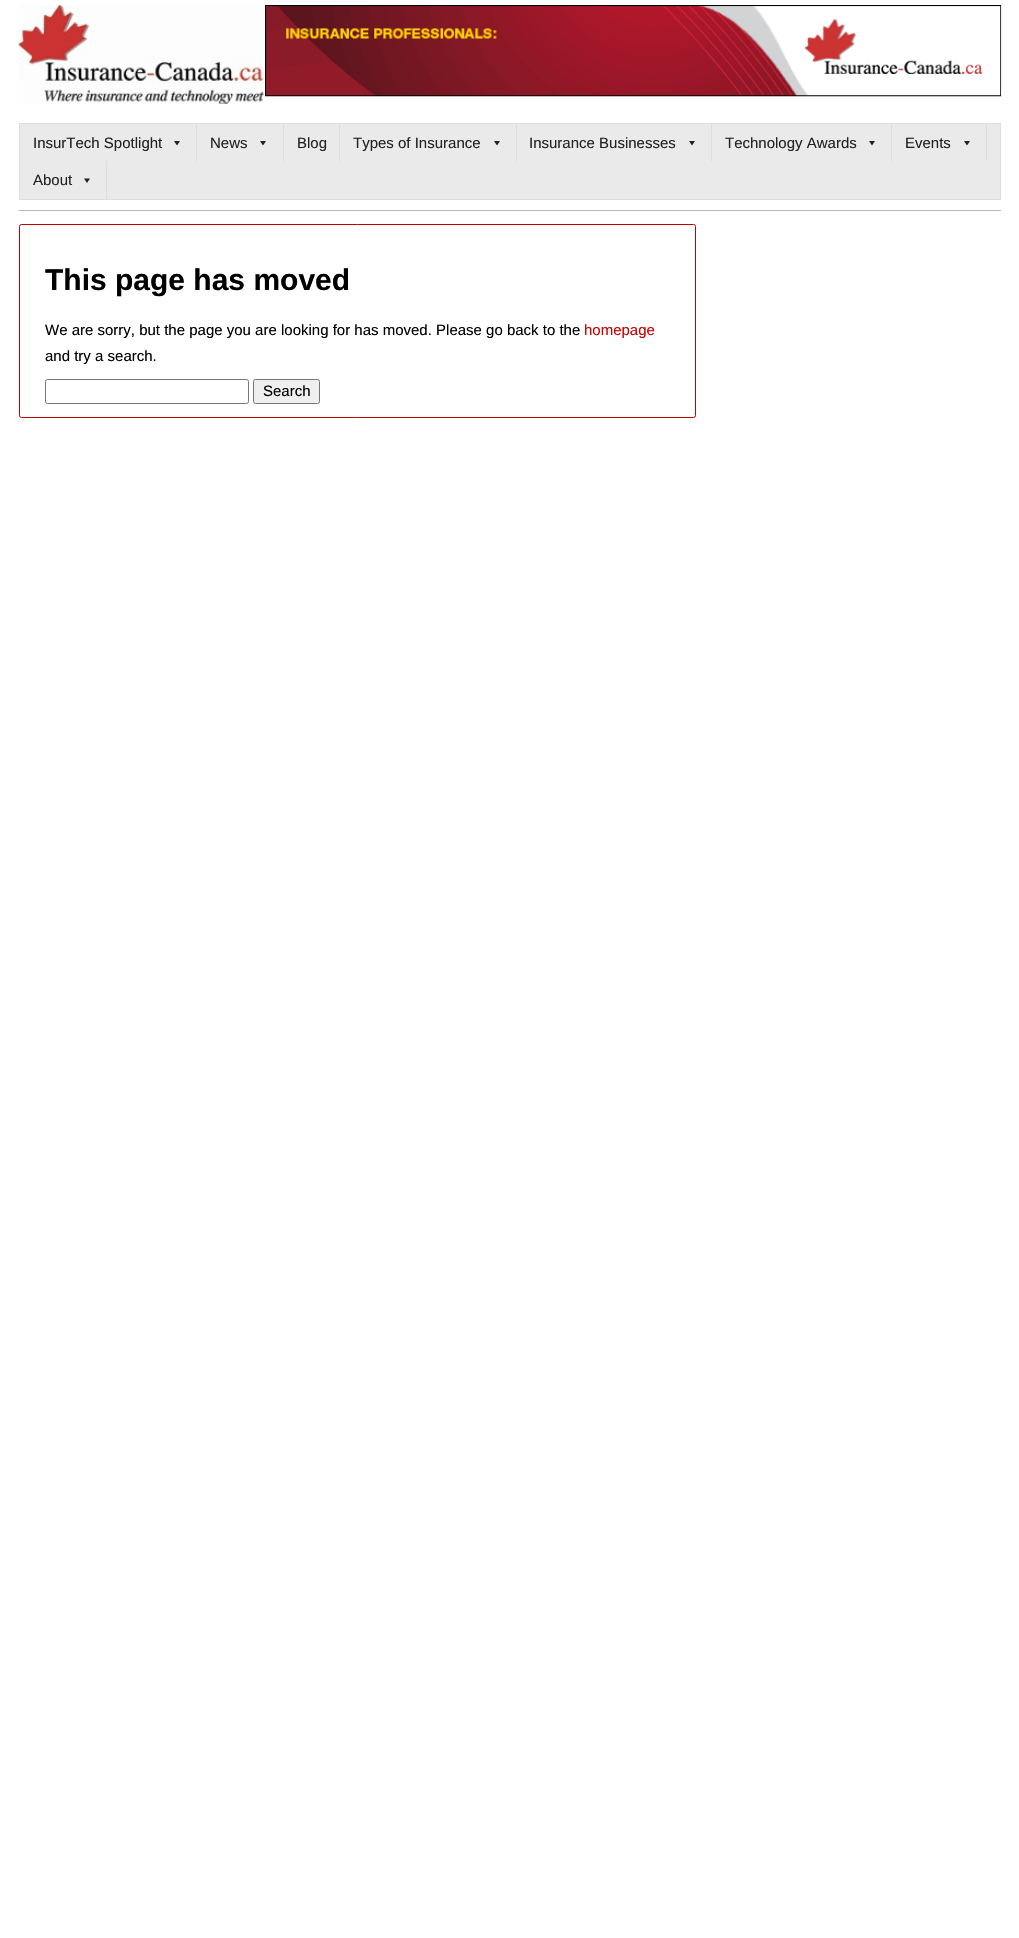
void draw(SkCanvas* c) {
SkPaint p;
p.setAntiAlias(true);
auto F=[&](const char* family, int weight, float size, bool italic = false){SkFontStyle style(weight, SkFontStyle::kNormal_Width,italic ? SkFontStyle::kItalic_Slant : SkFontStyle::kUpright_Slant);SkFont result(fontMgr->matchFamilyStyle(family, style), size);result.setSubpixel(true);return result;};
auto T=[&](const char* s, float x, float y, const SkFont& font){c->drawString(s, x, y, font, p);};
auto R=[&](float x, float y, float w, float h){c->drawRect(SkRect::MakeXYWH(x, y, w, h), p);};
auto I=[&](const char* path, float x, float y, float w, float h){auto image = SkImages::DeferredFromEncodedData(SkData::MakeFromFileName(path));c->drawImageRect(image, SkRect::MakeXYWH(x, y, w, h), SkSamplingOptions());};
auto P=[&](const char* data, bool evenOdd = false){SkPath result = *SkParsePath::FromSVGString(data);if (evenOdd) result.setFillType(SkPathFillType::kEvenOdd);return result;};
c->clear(0xffffffff);
I("1.png",18,5,246,99);
I("2.png",265,5,737,92);
p.setColor(0xffeaeaea);
c->drawRect(SkRect::MakeXYWH(19.5,123.5,981,76),p);
p.setStroke(true);
p.setStrokeWidth(1);
p.setColor(0xffdddddd);
c->drawRect(SkRect::MakeXYWH(19.5,123.5,981,76),p);
p.setStroke(false);
R(196,124,1,37);
auto f1 = F("Liberation Sans",400,15);
p.setColor(0xff222222);
T("InsurTech Spotlight",33,148,f1);
c->drawPath(P("M180 141l-3 4.5l-3-4.5z"),p);
p.setColor(0xffdddddd);
R(283,124,1,37);
p.setColor(0xff222222);
T("News",210,148,f1);
c->drawPath(P("M266 141l-3 4.5l-3-4.5z"),p);
p.setColor(0xffdddddd);
R(339,124,1,37);
p.setColor(0xff222222);
T("Blog",297,148,f1);
p.setColor(0xffdddddd);
R(516,124,1,37);
p.setColor(0xff222222);
T("Types of Insurance",353,148,f1);
c->drawPath(P("M500 141l-3 4.5l-3-4.5z"),p);
p.setColor(0xffdddddd);
R(711,124,1,37);
p.setColor(0xff222222);
T("Insurance Businesses",529,148,f1);
c->drawPath(P("M695 141l-3 4.5l-3-4.5z"),p);
p.setColor(0xffdddddd);
R(891,124,1,37);
p.setColor(0xff222222);
T("Technology Awards",725,148,f1);
c->drawPath(P("M875 141l-3 4.5l-3-4.5z"),p);
p.setColor(0xffdddddd);
R(986,124,1,37);
p.setColor(0xff222222);
T("Events",905,148,f1);
c->drawPath(P("M970 141l-3 4.5l-3-4.5z"),p);
p.setColor(0xffdddddd);
R(106,161,1,38);
p.setColor(0xff222222);
T("About",33,185,f1);
c->drawPath(P("M90 178.5l-3 4.5l-3-4.5z"),p);
p.setColor(0xffb4b4b4);
R(19,210,982,1);
p.setStroke(true);
p.setColor(0xffc00000);
c->drawRoundRect(SkRect::MakeXYWH(19.5,224.5,676,193),2,2,p);
auto f2 = F("Liberation Sans",700,30);
p.setStroke(false);
p.setColor(0xff000000);
T("This page has moved",45,290,f2);
T("We are sorry, but the page you are looking for has moved. Please go back to the",45,335,f1);
p.setColor(0xffc70303);
T("homepage",584,335,f1);
p.setColor(0xff000000);
T("and try a search.",45,361,f1);
p.setStroke(true);
p.setColor(0xff767676);
c->drawRoundRect(SkRect::MakeXYWH(45.5,379.5,203,24),2,2,p);
p.setStroke(false);
p.setColor(0xffefefef);
c->drawRoundRect(SkRect::MakeXYWH(253.5,379.5,66,24),2,2,p);
p.setStroke(true);
p.setColor(0xff767676);
c->drawRoundRect(SkRect::MakeXYWH(253.5,379.5,66,24),2,2,p);
p.setStroke(false);
p.setColor(0xff000000);
T("Search",263,396,f1);
}
